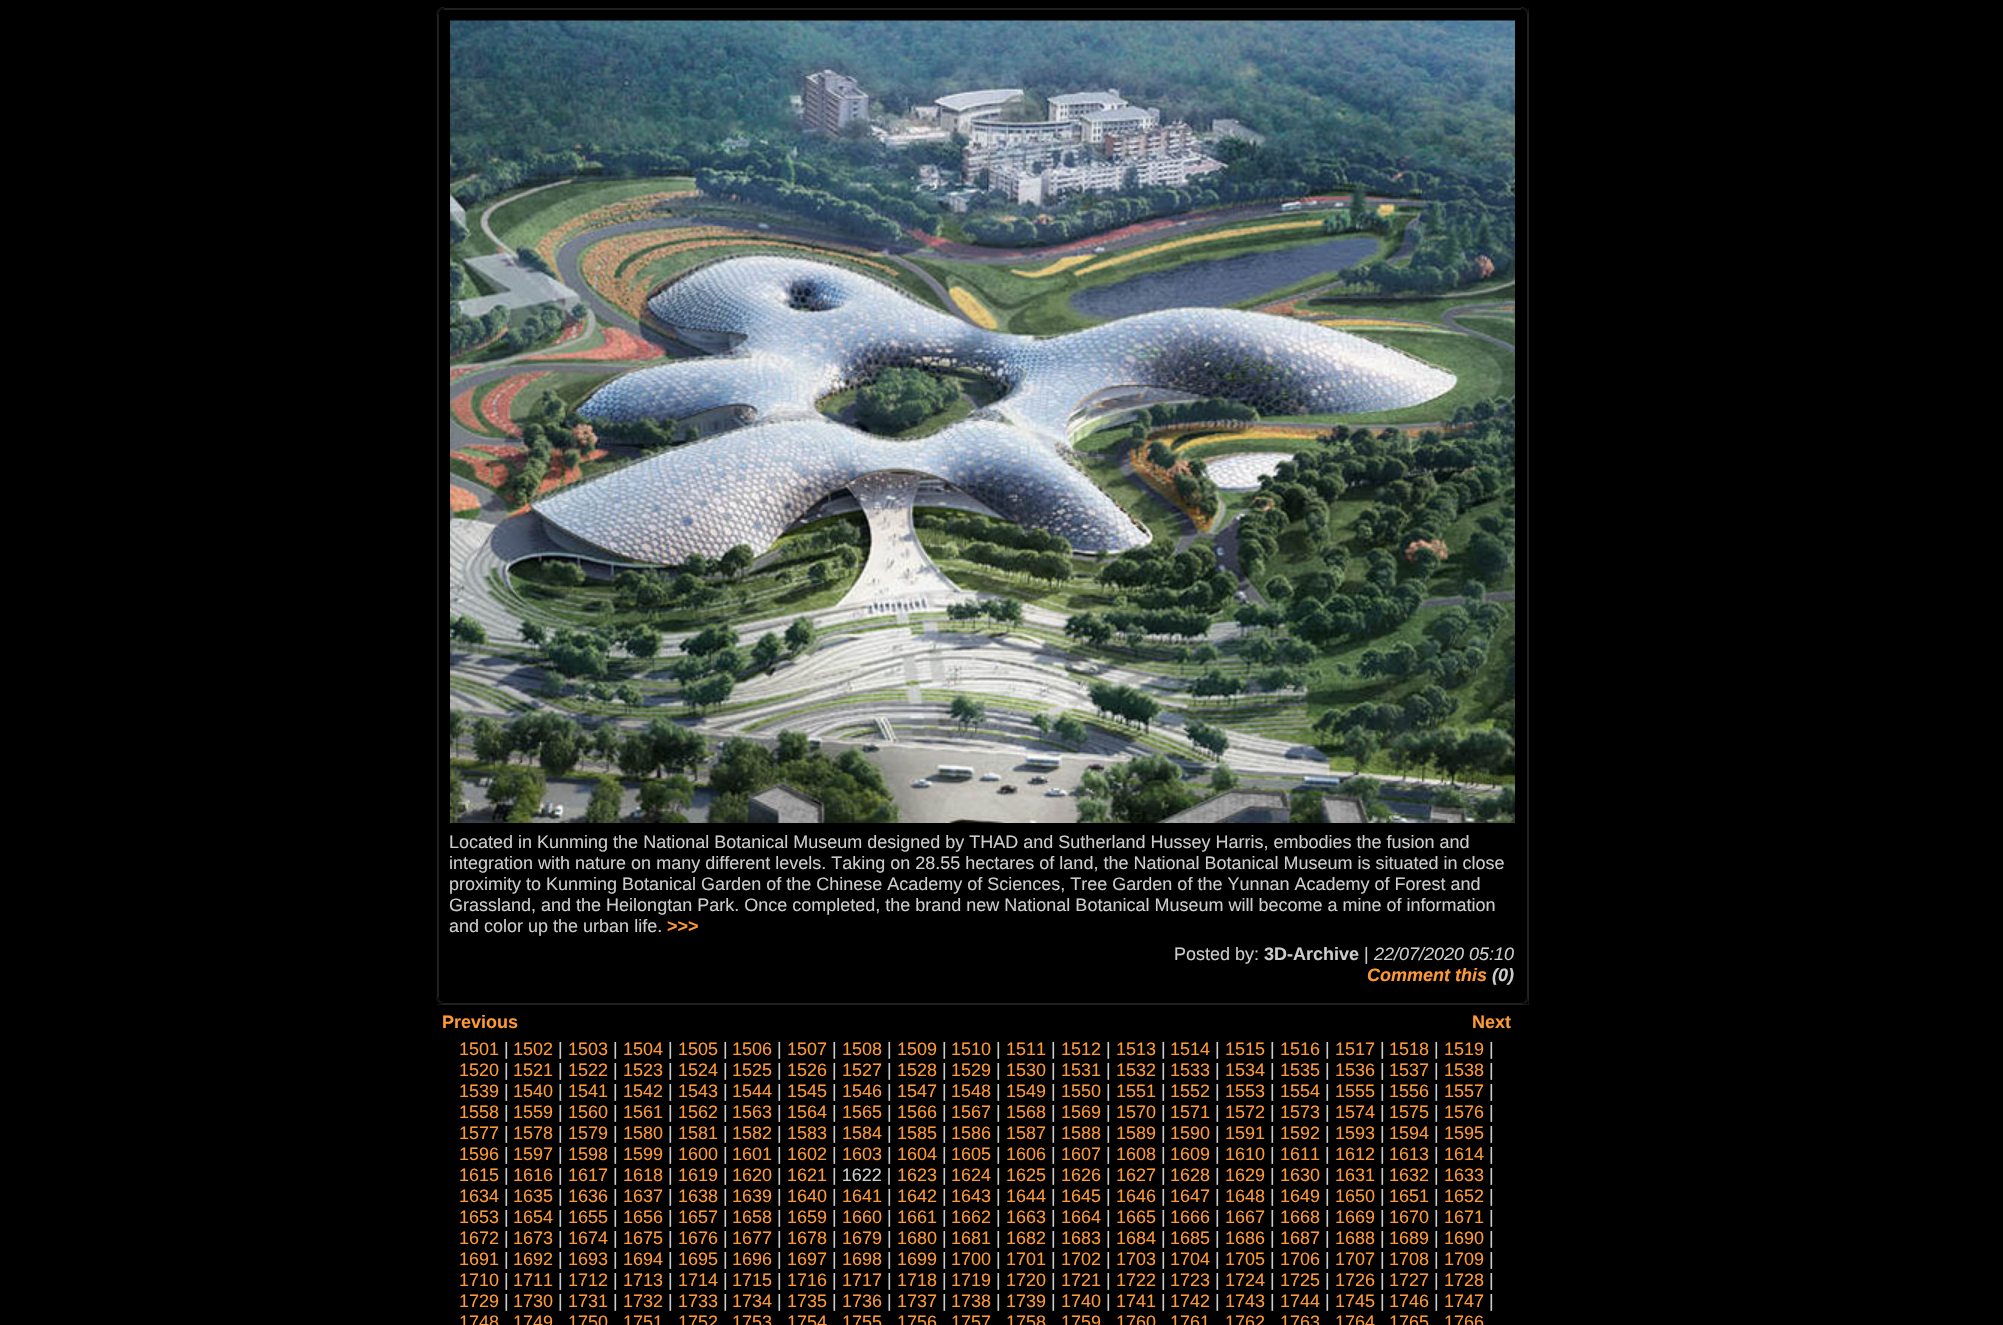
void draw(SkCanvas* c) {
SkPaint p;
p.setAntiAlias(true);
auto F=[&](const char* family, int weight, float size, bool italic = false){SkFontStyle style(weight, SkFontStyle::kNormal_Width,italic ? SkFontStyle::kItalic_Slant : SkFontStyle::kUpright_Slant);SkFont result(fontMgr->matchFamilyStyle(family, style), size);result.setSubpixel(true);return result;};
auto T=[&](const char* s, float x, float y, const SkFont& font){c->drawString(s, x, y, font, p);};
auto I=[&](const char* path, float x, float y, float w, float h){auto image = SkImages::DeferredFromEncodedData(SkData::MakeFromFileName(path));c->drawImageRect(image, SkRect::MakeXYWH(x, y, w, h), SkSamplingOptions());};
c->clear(0xff000000);
p.setStroke(true);
p.setStrokeWidth(2);
p.setColor(0xff212121);
c->drawRect(SkRect::MakeXYWH(438,9,1090,995),p);
I("1.png",436,7,8,8);
I("2.png",1521,7,8,8);
I("3.png",450,20,1065,803);
auto f1 = F("Liberation Sans",400,18);
p.setStroke(false);
p.setColor(0xffcccccc);
T("Located in Kunming the National Botanical Museum designed by THAD and Sutherland Hussey Harris, embodies the fusion and",449,848,f1);
T("integration with nature on many different levels. Taking on 28.55 hectares of land, the National Botanical Museum is situated in close",449,869,f1);
T("proximity to Kunming Botanical Garden of the Chinese Academy of Sciences, Tree Garden of the Yunnan Academy of Forest and",449,890,f1);
T("Grassland, and the Heilongtan Park. Once completed, the brand new National Botanical Museum will become a mine of information",449,911,f1);
T("and color up the urban life.",449,932,f1);
auto f2 = F("Liberation Sans",700,18);
p.setColor(0xffff9933);
T(">>>",667,932,f2);
p.setColor(0xffcccccc);
T("Posted by:",1174,960,f1);
T("3D-Archive",1264,960,f2);
T("|",1364,960,f1);
auto f3 = F("Liberation Sans",400,18,true);
T("22/07/2020 05:10",1374,960,f3);
auto f4 = F("Liberation Sans",700,18,true);
p.setColor(0xffff9933);
T("Comment this",1367,981,f4);
p.setColor(0xffcccccc);
T("(0)",1492,981,f4);
I("4.png",436,997,8,8);
I("5.png",1521,997,8,8);
p.setColor(0xffff9933);
T("Previous",442,1028,f2);
T("Next",1472,1028,f2);
T("1501",459,1055,f1);
p.setColor(0xffcccccc);
T("|",504,1055,f1);
p.setColor(0xffff9933);
T("1502",513,1055,f1);
p.setColor(0xffcccccc);
T("|",558,1055,f1);
p.setColor(0xffff9933);
T("1503",568,1055,f1);
p.setColor(0xffcccccc);
T("|",613,1055,f1);
p.setColor(0xffff9933);
T("1504",623,1055,f1);
p.setColor(0xffcccccc);
T("|",668,1055,f1);
p.setColor(0xffff9933);
T("1505",678,1055,f1);
p.setColor(0xffcccccc);
T("|",723,1055,f1);
p.setColor(0xffff9933);
T("1506",732,1055,f1);
p.setColor(0xffcccccc);
T("|",777,1055,f1);
p.setColor(0xffff9933);
T("1507",787,1055,f1);
p.setColor(0xffcccccc);
T("|",832,1055,f1);
p.setColor(0xffff9933);
T("1508",842,1055,f1);
p.setColor(0xffcccccc);
T("|",887,1055,f1);
p.setColor(0xffff9933);
T("1509",897,1055,f1);
p.setColor(0xffcccccc);
T("|",942,1055,f1);
p.setColor(0xffff9933);
T("1510",951,1055,f1);
p.setColor(0xffcccccc);
T("|",996,1055,f1);
p.setColor(0xffff9933);
T("1511",1006,1055,f1);
p.setColor(0xffcccccc);
T("|",1051,1055,f1);
p.setColor(0xffff9933);
T("1512",1061,1055,f1);
p.setColor(0xffcccccc);
T("|",1106,1055,f1);
p.setColor(0xffff9933);
T("1513",1116,1055,f1);
p.setColor(0xffcccccc);
T("|",1161,1055,f1);
p.setColor(0xffff9933);
T("1514",1170,1055,f1);
p.setColor(0xffcccccc);
T("|",1215,1055,f1);
p.setColor(0xffff9933);
T("1515",1225,1055,f1);
p.setColor(0xffcccccc);
T("|",1270,1055,f1);
p.setColor(0xffff9933);
T("1516",1280,1055,f1);
p.setColor(0xffcccccc);
T("|",1325,1055,f1);
p.setColor(0xffff9933);
T("1517",1335,1055,f1);
p.setColor(0xffcccccc);
T("|",1380,1055,f1);
p.setColor(0xffff9933);
T("1518",1389,1055,f1);
p.setColor(0xffcccccc);
T("|",1434,1055,f1);
p.setColor(0xffff9933);
T("1519",1444,1055,f1);
p.setColor(0xffcccccc);
T("|",1489,1055,f1);
p.setColor(0xffff9933);
T("1520",459,1076,f1);
p.setColor(0xffcccccc);
T("|",504,1076,f1);
p.setColor(0xffff9933);
T("1521",513,1076,f1);
p.setColor(0xffcccccc);
T("|",558,1076,f1);
p.setColor(0xffff9933);
T("1522",568,1076,f1);
p.setColor(0xffcccccc);
T("|",613,1076,f1);
p.setColor(0xffff9933);
T("1523",623,1076,f1);
p.setColor(0xffcccccc);
T("|",668,1076,f1);
p.setColor(0xffff9933);
T("1524",678,1076,f1);
p.setColor(0xffcccccc);
T("|",723,1076,f1);
p.setColor(0xffff9933);
T("1525",732,1076,f1);
p.setColor(0xffcccccc);
T("|",777,1076,f1);
p.setColor(0xffff9933);
T("1526",787,1076,f1);
p.setColor(0xffcccccc);
T("|",832,1076,f1);
p.setColor(0xffff9933);
T("1527",842,1076,f1);
p.setColor(0xffcccccc);
T("|",887,1076,f1);
p.setColor(0xffff9933);
T("1528",897,1076,f1);
p.setColor(0xffcccccc);
T("|",942,1076,f1);
p.setColor(0xffff9933);
T("1529",951,1076,f1);
p.setColor(0xffcccccc);
T("|",996,1076,f1);
p.setColor(0xffff9933);
T("1530",1006,1076,f1);
p.setColor(0xffcccccc);
T("|",1051,1076,f1);
p.setColor(0xffff9933);
T("1531",1061,1076,f1);
p.setColor(0xffcccccc);
T("|",1106,1076,f1);
p.setColor(0xffff9933);
T("1532",1116,1076,f1);
p.setColor(0xffcccccc);
T("|",1161,1076,f1);
p.setColor(0xffff9933);
T("1533",1170,1076,f1);
p.setColor(0xffcccccc);
T("|",1215,1076,f1);
p.setColor(0xffff9933);
T("1534",1225,1076,f1);
p.setColor(0xffcccccc);
T("|",1270,1076,f1);
p.setColor(0xffff9933);
T("1535",1280,1076,f1);
p.setColor(0xffcccccc);
T("|",1325,1076,f1);
p.setColor(0xffff9933);
T("1536",1335,1076,f1);
p.setColor(0xffcccccc);
T("|",1380,1076,f1);
p.setColor(0xffff9933);
T("1537",1389,1076,f1);
p.setColor(0xffcccccc);
T("|",1434,1076,f1);
p.setColor(0xffff9933);
T("1538",1444,1076,f1);
p.setColor(0xffcccccc);
T("|",1489,1076,f1);
p.setColor(0xffff9933);
T("1539",459,1097,f1);
p.setColor(0xffcccccc);
T("|",504,1097,f1);
p.setColor(0xffff9933);
T("1540",513,1097,f1);
p.setColor(0xffcccccc);
T("|",558,1097,f1);
p.setColor(0xffff9933);
T("1541",568,1097,f1);
p.setColor(0xffcccccc);
T("|",613,1097,f1);
p.setColor(0xffff9933);
T("1542",623,1097,f1);
p.setColor(0xffcccccc);
T("|",668,1097,f1);
p.setColor(0xffff9933);
T("1543",678,1097,f1);
p.setColor(0xffcccccc);
T("|",723,1097,f1);
p.setColor(0xffff9933);
T("1544",732,1097,f1);
p.setColor(0xffcccccc);
T("|",777,1097,f1);
p.setColor(0xffff9933);
T("1545",787,1097,f1);
p.setColor(0xffcccccc);
T("|",832,1097,f1);
p.setColor(0xffff9933);
T("1546",842,1097,f1);
p.setColor(0xffcccccc);
T("|",887,1097,f1);
p.setColor(0xffff9933);
T("1547",897,1097,f1);
p.setColor(0xffcccccc);
T("|",942,1097,f1);
p.setColor(0xffff9933);
T("1548",951,1097,f1);
p.setColor(0xffcccccc);
T("|",996,1097,f1);
p.setColor(0xffff9933);
T("1549",1006,1097,f1);
p.setColor(0xffcccccc);
T("|",1051,1097,f1);
p.setColor(0xffff9933);
T("1550",1061,1097,f1);
p.setColor(0xffcccccc);
T("|",1106,1097,f1);
p.setColor(0xffff9933);
T("1551",1116,1097,f1);
p.setColor(0xffcccccc);
T("|",1161,1097,f1);
p.setColor(0xffff9933);
T("1552",1170,1097,f1);
p.setColor(0xffcccccc);
T("|",1215,1097,f1);
p.setColor(0xffff9933);
T("1553",1225,1097,f1);
p.setColor(0xffcccccc);
T("|",1270,1097,f1);
p.setColor(0xffff9933);
T("1554",1280,1097,f1);
p.setColor(0xffcccccc);
T("|",1325,1097,f1);
p.setColor(0xffff9933);
T("1555",1335,1097,f1);
p.setColor(0xffcccccc);
T("|",1380,1097,f1);
p.setColor(0xffff9933);
T("1556",1389,1097,f1);
p.setColor(0xffcccccc);
T("|",1434,1097,f1);
p.setColor(0xffff9933);
T("1557",1444,1097,f1);
p.setColor(0xffcccccc);
T("|",1489,1097,f1);
p.setColor(0xffff9933);
T("1558",459,1118,f1);
p.setColor(0xffcccccc);
T("|",504,1118,f1);
p.setColor(0xffff9933);
T("1559",513,1118,f1);
p.setColor(0xffcccccc);
T("|",558,1118,f1);
p.setColor(0xffff9933);
T("1560",568,1118,f1);
p.setColor(0xffcccccc);
T("|",613,1118,f1);
p.setColor(0xffff9933);
T("1561",623,1118,f1);
p.setColor(0xffcccccc);
T("|",668,1118,f1);
p.setColor(0xffff9933);
T("1562",678,1118,f1);
p.setColor(0xffcccccc);
T("|",723,1118,f1);
p.setColor(0xffff9933);
T("1563",732,1118,f1);
p.setColor(0xffcccccc);
T("|",777,1118,f1);
p.setColor(0xffff9933);
T("1564",787,1118,f1);
p.setColor(0xffcccccc);
T("|",832,1118,f1);
p.setColor(0xffff9933);
T("1565",842,1118,f1);
p.setColor(0xffcccccc);
T("|",887,1118,f1);
p.setColor(0xffff9933);
T("1566",897,1118,f1);
p.setColor(0xffcccccc);
T("|",942,1118,f1);
p.setColor(0xffff9933);
T("1567",951,1118,f1);
p.setColor(0xffcccccc);
T("|",996,1118,f1);
p.setColor(0xffff9933);
T("1568",1006,1118,f1);
p.setColor(0xffcccccc);
T("|",1051,1118,f1);
p.setColor(0xffff9933);
T("1569",1061,1118,f1);
p.setColor(0xffcccccc);
T("|",1106,1118,f1);
p.setColor(0xffff9933);
T("1570",1116,1118,f1);
p.setColor(0xffcccccc);
T("|",1161,1118,f1);
p.setColor(0xffff9933);
T("1571",1170,1118,f1);
p.setColor(0xffcccccc);
T("|",1215,1118,f1);
p.setColor(0xffff9933);
T("1572",1225,1118,f1);
p.setColor(0xffcccccc);
T("|",1270,1118,f1);
p.setColor(0xffff9933);
T("1573",1280,1118,f1);
p.setColor(0xffcccccc);
T("|",1325,1118,f1);
p.setColor(0xffff9933);
T("1574",1335,1118,f1);
p.setColor(0xffcccccc);
T("|",1380,1118,f1);
p.setColor(0xffff9933);
T("1575",1389,1118,f1);
p.setColor(0xffcccccc);
T("|",1434,1118,f1);
p.setColor(0xffff9933);
T("1576",1444,1118,f1);
p.setColor(0xffcccccc);
T("|",1489,1118,f1);
p.setColor(0xffff9933);
T("1577",459,1139,f1);
p.setColor(0xffcccccc);
T("|",504,1139,f1);
p.setColor(0xffff9933);
T("1578",513,1139,f1);
p.setColor(0xffcccccc);
T("|",558,1139,f1);
p.setColor(0xffff9933);
T("1579",568,1139,f1);
p.setColor(0xffcccccc);
T("|",613,1139,f1);
p.setColor(0xffff9933);
T("1580",623,1139,f1);
p.setColor(0xffcccccc);
T("|",668,1139,f1);
p.setColor(0xffff9933);
T("1581",678,1139,f1);
p.setColor(0xffcccccc);
T("|",723,1139,f1);
p.setColor(0xffff9933);
T("1582",732,1139,f1);
p.setColor(0xffcccccc);
T("|",777,1139,f1);
p.setColor(0xffff9933);
T("1583",787,1139,f1);
p.setColor(0xffcccccc);
T("|",832,1139,f1);
p.setColor(0xffff9933);
T("1584",842,1139,f1);
p.setColor(0xffcccccc);
T("|",887,1139,f1);
p.setColor(0xffff9933);
T("1585",897,1139,f1);
p.setColor(0xffcccccc);
T("|",942,1139,f1);
p.setColor(0xffff9933);
T("1586",951,1139,f1);
p.setColor(0xffcccccc);
T("|",996,1139,f1);
p.setColor(0xffff9933);
T("1587",1006,1139,f1);
p.setColor(0xffcccccc);
T("|",1051,1139,f1);
p.setColor(0xffff9933);
T("1588",1061,1139,f1);
p.setColor(0xffcccccc);
T("|",1106,1139,f1);
p.setColor(0xffff9933);
T("1589",1116,1139,f1);
p.setColor(0xffcccccc);
T("|",1161,1139,f1);
p.setColor(0xffff9933);
T("1590",1170,1139,f1);
p.setColor(0xffcccccc);
T("|",1215,1139,f1);
p.setColor(0xffff9933);
T("1591",1225,1139,f1);
p.setColor(0xffcccccc);
T("|",1270,1139,f1);
p.setColor(0xffff9933);
T("1592",1280,1139,f1);
p.setColor(0xffcccccc);
T("|",1325,1139,f1);
p.setColor(0xffff9933);
T("1593",1335,1139,f1);
p.setColor(0xffcccccc);
T("|",1380,1139,f1);
p.setColor(0xffff9933);
T("1594",1389,1139,f1);
p.setColor(0xffcccccc);
T("|",1434,1139,f1);
p.setColor(0xffff9933);
T("1595",1444,1139,f1);
p.setColor(0xffcccccc);
T("|",1489,1139,f1);
p.setColor(0xffff9933);
T("1596",459,1160,f1);
p.setColor(0xffcccccc);
T("|",504,1160,f1);
p.setColor(0xffff9933);
T("1597",513,1160,f1);
p.setColor(0xffcccccc);
T("|",558,1160,f1);
p.setColor(0xffff9933);
T("1598",568,1160,f1);
p.setColor(0xffcccccc);
T("|",613,1160,f1);
p.setColor(0xffff9933);
T("1599",623,1160,f1);
p.setColor(0xffcccccc);
T("|",668,1160,f1);
p.setColor(0xffff9933);
T("1600",678,1160,f1);
p.setColor(0xffcccccc);
T("|",723,1160,f1);
p.setColor(0xffff9933);
T("1601",732,1160,f1);
p.setColor(0xffcccccc);
T("|",777,1160,f1);
p.setColor(0xffff9933);
T("1602",787,1160,f1);
p.setColor(0xffcccccc);
T("|",832,1160,f1);
p.setColor(0xffff9933);
T("1603",842,1160,f1);
p.setColor(0xffcccccc);
T("|",887,1160,f1);
p.setColor(0xffff9933);
T("1604",897,1160,f1);
p.setColor(0xffcccccc);
T("|",942,1160,f1);
p.setColor(0xffff9933);
T("1605",951,1160,f1);
p.setColor(0xffcccccc);
T("|",996,1160,f1);
p.setColor(0xffff9933);
T("1606",1006,1160,f1);
p.setColor(0xffcccccc);
T("|",1051,1160,f1);
p.setColor(0xffff9933);
T("1607",1061,1160,f1);
p.setColor(0xffcccccc);
T("|",1106,1160,f1);
p.setColor(0xffff9933);
T("1608",1116,1160,f1);
p.setColor(0xffcccccc);
T("|",1161,1160,f1);
p.setColor(0xffff9933);
T("1609",1170,1160,f1);
p.setColor(0xffcccccc);
T("|",1215,1160,f1);
p.setColor(0xffff9933);
T("1610",1225,1160,f1);
p.setColor(0xffcccccc);
T("|",1270,1160,f1);
p.setColor(0xffff9933);
T("1611",1280,1160,f1);
p.setColor(0xffcccccc);
T("|",1325,1160,f1);
p.setColor(0xffff9933);
T("1612",1335,1160,f1);
p.setColor(0xffcccccc);
T("|",1380,1160,f1);
p.setColor(0xffff9933);
T("1613",1389,1160,f1);
p.setColor(0xffcccccc);
T("|",1434,1160,f1);
p.setColor(0xffff9933);
T("1614",1444,1160,f1);
p.setColor(0xffcccccc);
T("|",1489,1160,f1);
p.setColor(0xffff9933);
T("1615",459,1181,f1);
p.setColor(0xffcccccc);
T("|",504,1181,f1);
p.setColor(0xffff9933);
T("1616",513,1181,f1);
p.setColor(0xffcccccc);
T("|",558,1181,f1);
p.setColor(0xffff9933);
T("1617",568,1181,f1);
p.setColor(0xffcccccc);
T("|",613,1181,f1);
p.setColor(0xffff9933);
T("1618",623,1181,f1);
p.setColor(0xffcccccc);
T("|",668,1181,f1);
p.setColor(0xffff9933);
T("1619",678,1181,f1);
p.setColor(0xffcccccc);
T("|",723,1181,f1);
p.setColor(0xffff9933);
T("1620",732,1181,f1);
p.setColor(0xffcccccc);
T("|",777,1181,f1);
p.setColor(0xffff9933);
T("1621",787,1181,f1);
p.setColor(0xffcccccc);
T("| 1622 |",832,1181,f1);
p.setColor(0xffff9933);
T("1623",897,1181,f1);
p.setColor(0xffcccccc);
T("|",942,1181,f1);
p.setColor(0xffff9933);
T("1624",951,1181,f1);
p.setColor(0xffcccccc);
T("|",996,1181,f1);
p.setColor(0xffff9933);
T("1625",1006,1181,f1);
p.setColor(0xffcccccc);
T("|",1051,1181,f1);
p.setColor(0xffff9933);
T("1626",1061,1181,f1);
p.setColor(0xffcccccc);
T("|",1106,1181,f1);
p.setColor(0xffff9933);
T("1627",1116,1181,f1);
p.setColor(0xffcccccc);
T("|",1161,1181,f1);
p.setColor(0xffff9933);
T("1628",1170,1181,f1);
p.setColor(0xffcccccc);
T("|",1215,1181,f1);
p.setColor(0xffff9933);
T("1629",1225,1181,f1);
p.setColor(0xffcccccc);
T("|",1270,1181,f1);
p.setColor(0xffff9933);
T("1630",1280,1181,f1);
p.setColor(0xffcccccc);
T("|",1325,1181,f1);
p.setColor(0xffff9933);
T("1631",1335,1181,f1);
p.setColor(0xffcccccc);
T("|",1380,1181,f1);
p.setColor(0xffff9933);
T("1632",1389,1181,f1);
p.setColor(0xffcccccc);
T("|",1434,1181,f1);
p.setColor(0xffff9933);
T("1633",1444,1181,f1);
p.setColor(0xffcccccc);
T("|",1489,1181,f1);
p.setColor(0xffff9933);
T("1634",459,1202,f1);
p.setColor(0xffcccccc);
T("|",504,1202,f1);
p.setColor(0xffff9933);
T("1635",513,1202,f1);
p.setColor(0xffcccccc);
T("|",558,1202,f1);
p.setColor(0xffff9933);
T("1636",568,1202,f1);
p.setColor(0xffcccccc);
T("|",613,1202,f1);
p.setColor(0xffff9933);
T("1637",623,1202,f1);
p.setColor(0xffcccccc);
T("|",668,1202,f1);
p.setColor(0xffff9933);
T("1638",678,1202,f1);
p.setColor(0xffcccccc);
T("|",723,1202,f1);
p.setColor(0xffff9933);
T("1639",732,1202,f1);
p.setColor(0xffcccccc);
T("|",777,1202,f1);
p.setColor(0xffff9933);
T("1640",787,1202,f1);
p.setColor(0xffcccccc);
T("|",832,1202,f1);
p.setColor(0xffff9933);
T("1641",842,1202,f1);
p.setColor(0xffcccccc);
T("|",887,1202,f1);
p.setColor(0xffff9933);
T("1642",897,1202,f1);
p.setColor(0xffcccccc);
T("|",942,1202,f1);
p.setColor(0xffff9933);
T("1643",951,1202,f1);
p.setColor(0xffcccccc);
T("|",996,1202,f1);
p.setColor(0xffff9933);
T("1644",1006,1202,f1);
p.setColor(0xffcccccc);
T("|",1051,1202,f1);
p.setColor(0xffff9933);
T("1645",1061,1202,f1);
p.setColor(0xffcccccc);
T("|",1106,1202,f1);
p.setColor(0xffff9933);
T("1646",1116,1202,f1);
p.setColor(0xffcccccc);
T("|",1161,1202,f1);
p.setColor(0xffff9933);
T("1647",1170,1202,f1);
p.setColor(0xffcccccc);
T("|",1215,1202,f1);
p.setColor(0xffff9933);
T("1648",1225,1202,f1);
p.setColor(0xffcccccc);
T("|",1270,1202,f1);
p.setColor(0xffff9933);
T("1649",1280,1202,f1);
p.setColor(0xffcccccc);
T("|",1325,1202,f1);
p.setColor(0xffff9933);
T("1650",1335,1202,f1);
p.setColor(0xffcccccc);
T("|",1380,1202,f1);
p.setColor(0xffff9933);
T("1651",1389,1202,f1);
p.setColor(0xffcccccc);
T("|",1434,1202,f1);
p.setColor(0xffff9933);
T("1652",1444,1202,f1);
p.setColor(0xffcccccc);
T("|",1489,1202,f1);
p.setColor(0xffff9933);
T("1653",459,1223,f1);
p.setColor(0xffcccccc);
T("|",504,1223,f1);
p.setColor(0xffff9933);
T("1654",513,1223,f1);
p.setColor(0xffcccccc);
T("|",558,1223,f1);
p.setColor(0xffff9933);
T("1655",568,1223,f1);
p.setColor(0xffcccccc);
T("|",613,1223,f1);
p.setColor(0xffff9933);
T("1656",623,1223,f1);
p.setColor(0xffcccccc);
T("|",668,1223,f1);
p.setColor(0xffff9933);
T("1657",678,1223,f1);
p.setColor(0xffcccccc);
T("|",723,1223,f1);
p.setColor(0xffff9933);
T("1658",732,1223,f1);
p.setColor(0xffcccccc);
T("|",777,1223,f1);
p.setColor(0xffff9933);
T("1659",787,1223,f1);
p.setColor(0xffcccccc);
T("|",832,1223,f1);
p.setColor(0xffff9933);
T("1660",842,1223,f1);
p.setColor(0xffcccccc);
T("|",887,1223,f1);
p.setColor(0xffff9933);
T("1661",897,1223,f1);
p.setColor(0xffcccccc);
T("|",942,1223,f1);
p.setColor(0xffff9933);
T("1662",951,1223,f1);
p.setColor(0xffcccccc);
T("|",996,1223,f1);
p.setColor(0xffff9933);
T("1663",1006,1223,f1);
p.setColor(0xffcccccc);
T("|",1051,1223,f1);
p.setColor(0xffff9933);
T("1664",1061,1223,f1);
p.setColor(0xffcccccc);
T("|",1106,1223,f1);
p.setColor(0xffff9933);
T("1665",1116,1223,f1);
p.setColor(0xffcccccc);
T("|",1161,1223,f1);
p.setColor(0xffff9933);
T("1666",1170,1223,f1);
p.setColor(0xffcccccc);
T("|",1215,1223,f1);
p.setColor(0xffff9933);
T("1667",1225,1223,f1);
p.setColor(0xffcccccc);
T("|",1270,1223,f1);
p.setColor(0xffff9933);
T("1668",1280,1223,f1);
p.setColor(0xffcccccc);
T("|",1325,1223,f1);
p.setColor(0xffff9933);
T("1669",1335,1223,f1);
p.setColor(0xffcccccc);
T("|",1380,1223,f1);
p.setColor(0xffff9933);
T("1670",1389,1223,f1);
p.setColor(0xffcccccc);
T("|",1434,1223,f1);
p.setColor(0xffff9933);
T("1671",1444,1223,f1);
p.setColor(0xffcccccc);
T("|",1489,1223,f1);
p.setColor(0xffff9933);
T("1672",459,1244,f1);
p.setColor(0xffcccccc);
T("|",504,1244,f1);
p.setColor(0xffff9933);
T("1673",513,1244,f1);
p.setColor(0xffcccccc);
T("|",558,1244,f1);
p.setColor(0xffff9933);
T("1674",568,1244,f1);
p.setColor(0xffcccccc);
T("|",613,1244,f1);
p.setColor(0xffff9933);
T("1675",623,1244,f1);
p.setColor(0xffcccccc);
T("|",668,1244,f1);
p.setColor(0xffff9933);
T("1676",678,1244,f1);
p.setColor(0xffcccccc);
T("|",723,1244,f1);
p.setColor(0xffff9933);
T("1677",732,1244,f1);
p.setColor(0xffcccccc);
T("|",777,1244,f1);
p.setColor(0xffff9933);
T("1678",787,1244,f1);
p.setColor(0xffcccccc);
T("|",832,1244,f1);
p.setColor(0xffff9933);
T("1679",842,1244,f1);
p.setColor(0xffcccccc);
T("|",887,1244,f1);
p.setColor(0xffff9933);
T("1680",897,1244,f1);
p.setColor(0xffcccccc);
T("|",942,1244,f1);
p.setColor(0xffff9933);
T("1681",951,1244,f1);
p.setColor(0xffcccccc);
T("|",996,1244,f1);
p.setColor(0xffff9933);
T("1682",1006,1244,f1);
p.setColor(0xffcccccc);
T("|",1051,1244,f1);
p.setColor(0xffff9933);
T("1683",1061,1244,f1);
p.setColor(0xffcccccc);
T("|",1106,1244,f1);
p.setColor(0xffff9933);
T("1684",1116,1244,f1);
p.setColor(0xffcccccc);
T("|",1161,1244,f1);
p.setColor(0xffff9933);
T("1685",1170,1244,f1);
p.setColor(0xffcccccc);
T("|",1215,1244,f1);
p.setColor(0xffff9933);
T("1686",1225,1244,f1);
p.setColor(0xffcccccc);
T("|",1270,1244,f1);
p.setColor(0xffff9933);
T("1687",1280,1244,f1);
p.setColor(0xffcccccc);
T("|",1325,1244,f1);
p.setColor(0xffff9933);
T("1688",1335,1244,f1);
p.setColor(0xffcccccc);
T("|",1380,1244,f1);
p.setColor(0xffff9933);
T("1689",1389,1244,f1);
p.setColor(0xffcccccc);
T("|",1434,1244,f1);
p.setColor(0xffff9933);
T("1690",1444,1244,f1);
p.setColor(0xffcccccc);
T("|",1489,1244,f1);
p.setColor(0xffff9933);
T("1691",459,1265,f1);
p.setColor(0xffcccccc);
T("|",504,1265,f1);
p.setColor(0xffff9933);
T("1692",513,1265,f1);
p.setColor(0xffcccccc);
T("|",558,1265,f1);
p.setColor(0xffff9933);
T("1693",568,1265,f1);
p.setColor(0xffcccccc);
T("|",613,1265,f1);
p.setColor(0xffff9933);
T("1694",623,1265,f1);
p.setColor(0xffcccccc);
T("|",668,1265,f1);
p.setColor(0xffff9933);
T("1695",678,1265,f1);
p.setColor(0xffcccccc);
T("|",723,1265,f1);
p.setColor(0xffff9933);
T("1696",732,1265,f1);
p.setColor(0xffcccccc);
T("|",777,1265,f1);
p.setColor(0xffff9933);
T("1697",787,1265,f1);
p.setColor(0xffcccccc);
T("|",832,1265,f1);
p.setColor(0xffff9933);
T("1698",842,1265,f1);
p.setColor(0xffcccccc);
T("|",887,1265,f1);
p.setColor(0xffff9933);
T("1699",897,1265,f1);
p.setColor(0xffcccccc);
T("|",942,1265,f1);
p.setColor(0xffff9933);
T("1700",951,1265,f1);
p.setColor(0xffcccccc);
T("|",996,1265,f1);
p.setColor(0xffff9933);
T("1701",1006,1265,f1);
p.setColor(0xffcccccc);
T("|",1051,1265,f1);
p.setColor(0xffff9933);
T("1702",1061,1265,f1);
p.setColor(0xffcccccc);
T("|",1106,1265,f1);
p.setColor(0xffff9933);
T("1703",1116,1265,f1);
p.setColor(0xffcccccc);
T("|",1161,1265,f1);
p.setColor(0xffff9933);
T("1704",1170,1265,f1);
p.setColor(0xffcccccc);
T("|",1215,1265,f1);
p.setColor(0xffff9933);
T("1705",1225,1265,f1);
p.setColor(0xffcccccc);
T("|",1270,1265,f1);
p.setColor(0xffff9933);
T("1706",1280,1265,f1);
p.setColor(0xffcccccc);
T("|",1325,1265,f1);
p.setColor(0xffff9933);
T("1707",1335,1265,f1);
p.setColor(0xffcccccc);
T("|",1380,1265,f1);
p.setColor(0xffff9933);
T("1708",1389,1265,f1);
p.setColor(0xffcccccc);
T("|",1434,1265,f1);
p.setColor(0xffff9933);
T("1709",1444,1265,f1);
p.setColor(0xffcccccc);
T("|",1489,1265,f1);
p.setColor(0xffff9933);
T("1710",459,1286,f1);
p.setColor(0xffcccccc);
T("|",504,1286,f1);
p.setColor(0xffff9933);
T("1711",513,1286,f1);
p.setColor(0xffcccccc);
T("|",558,1286,f1);
p.setColor(0xffff9933);
T("1712",568,1286,f1);
p.setColor(0xffcccccc);
T("|",613,1286,f1);
p.setColor(0xffff9933);
T("1713",623,1286,f1);
p.setColor(0xffcccccc);
T("|",668,1286,f1);
p.setColor(0xffff9933);
T("1714",678,1286,f1);
p.setColor(0xffcccccc);
T("|",723,1286,f1);
p.setColor(0xffff9933);
T("1715",732,1286,f1);
p.setColor(0xffcccccc);
T("|",777,1286,f1);
p.setColor(0xffff9933);
T("1716",787,1286,f1);
p.setColor(0xffcccccc);
T("|",832,1286,f1);
p.setColor(0xffff9933);
T("1717",842,1286,f1);
p.setColor(0xffcccccc);
T("|",887,1286,f1);
p.setColor(0xffff9933);
T("1718",897,1286,f1);
p.setColor(0xffcccccc);
T("|",942,1286,f1);
p.setColor(0xffff9933);
T("1719",951,1286,f1);
p.setColor(0xffcccccc);
T("|",996,1286,f1);
p.setColor(0xffff9933);
T("1720",1006,1286,f1);
p.setColor(0xffcccccc);
T("|",1051,1286,f1);
p.setColor(0xffff9933);
T("1721",1061,1286,f1);
p.setColor(0xffcccccc);
T("|",1106,1286,f1);
p.setColor(0xffff9933);
T("1722",1116,1286,f1);
p.setColor(0xffcccccc);
T("|",1161,1286,f1);
p.setColor(0xffff9933);
T("1723",1170,1286,f1);
p.setColor(0xffcccccc);
T("|",1215,1286,f1);
p.setColor(0xffff9933);
T("1724",1225,1286,f1);
p.setColor(0xffcccccc);
T("|",1270,1286,f1);
p.setColor(0xffff9933);
T("1725",1280,1286,f1);
p.setColor(0xffcccccc);
T("|",1325,1286,f1);
p.setColor(0xffff9933);
T("1726",1335,1286,f1);
p.setColor(0xffcccccc);
T("|",1380,1286,f1);
p.setColor(0xffff9933);
T("1727",1389,1286,f1);
p.setColor(0xffcccccc);
T("|",1434,1286,f1);
p.setColor(0xffff9933);
T("1728",1444,1286,f1);
p.setColor(0xffcccccc);
T("|",1489,1286,f1);
p.setColor(0xffff9933);
T("1729",459,1307,f1);
p.setColor(0xffcccccc);
T("|",504,1307,f1);
p.setColor(0xffff9933);
T("1730",513,1307,f1);
p.setColor(0xffcccccc);
T("|",558,1307,f1);
p.setColor(0xffff9933);
T("1731",568,1307,f1);
p.setColor(0xffcccccc);
T("|",613,1307,f1);
p.setColor(0xffff9933);
T("1732",623,1307,f1);
p.setColor(0xffcccccc);
T("|",668,1307,f1);
p.setColor(0xffff9933);
T("1733",678,1307,f1);
p.setColor(0xffcccccc);
T("|",723,1307,f1);
p.setColor(0xffff9933);
T("1734",732,1307,f1);
p.setColor(0xffcccccc);
T("|",777,1307,f1);
p.setColor(0xffff9933);
T("1735",787,1307,f1);
p.setColor(0xffcccccc);
T("|",832,1307,f1);
p.setColor(0xffff9933);
T("1736",842,1307,f1);
p.setColor(0xffcccccc);
T("|",887,1307,f1);
p.setColor(0xffff9933);
T("1737",897,1307,f1);
p.setColor(0xffcccccc);
T("|",942,1307,f1);
p.setColor(0xffff9933);
T("1738",951,1307,f1);
p.setColor(0xffcccccc);
T("|",996,1307,f1);
p.setColor(0xffff9933);
T("1739",1006,1307,f1);
p.setColor(0xffcccccc);
T("|",1051,1307,f1);
p.setColor(0xffff9933);
T("1740",1061,1307,f1);
p.setColor(0xffcccccc);
T("|",1106,1307,f1);
p.setColor(0xffff9933);
T("1741",1116,1307,f1);
p.setColor(0xffcccccc);
T("|",1161,1307,f1);
p.setColor(0xffff9933);
T("1742",1170,1307,f1);
p.setColor(0xffcccccc);
T("|",1215,1307,f1);
p.setColor(0xffff9933);
T("1743",1225,1307,f1);
p.setColor(0xffcccccc);
T("|",1270,1307,f1);
p.setColor(0xffff9933);
T("1744",1280,1307,f1);
p.setColor(0xffcccccc);
T("|",1325,1307,f1);
p.setColor(0xffff9933);
T("1745",1335,1307,f1);
p.setColor(0xffcccccc);
T("|",1380,1307,f1);
p.setColor(0xffff9933);
T("1746",1389,1307,f1);
p.setColor(0xffcccccc);
T("|",1434,1307,f1);
p.setColor(0xffff9933);
T("1747",1444,1307,f1);
p.setColor(0xffcccccc);
T("|",1489,1307,f1);
p.setColor(0xffff9933);
T("1748",459,1328,f1);
T("1749",513,1328,f1);
T("1750",568,1328,f1);
T("1751",623,1328,f1);
T("1752",678,1328,f1);
T("1753",732,1328,f1);
T("1754",787,1328,f1);
T("1755",842,1328,f1);
T("1756",897,1328,f1);
T("1757",951,1328,f1);
T("1758",1006,1328,f1);
T("1759",1061,1328,f1);
T("1760",1116,1328,f1);
T("1761",1170,1328,f1);
T("1762",1225,1328,f1);
T("1763",1280,1328,f1);
T("1764",1335,1328,f1);
T("1765",1389,1328,f1);
T("1766",1444,1328,f1);
}
